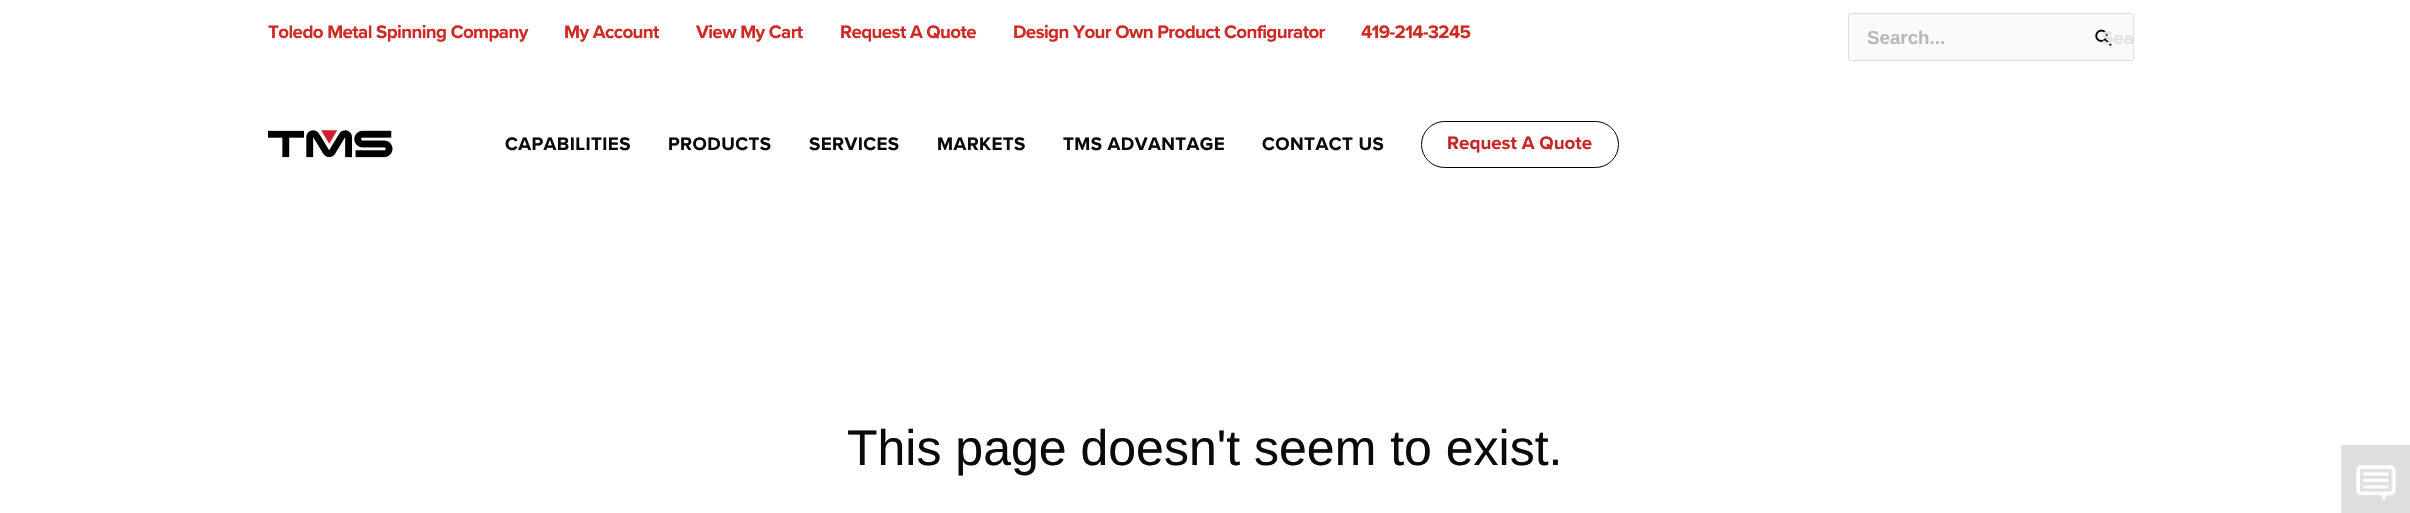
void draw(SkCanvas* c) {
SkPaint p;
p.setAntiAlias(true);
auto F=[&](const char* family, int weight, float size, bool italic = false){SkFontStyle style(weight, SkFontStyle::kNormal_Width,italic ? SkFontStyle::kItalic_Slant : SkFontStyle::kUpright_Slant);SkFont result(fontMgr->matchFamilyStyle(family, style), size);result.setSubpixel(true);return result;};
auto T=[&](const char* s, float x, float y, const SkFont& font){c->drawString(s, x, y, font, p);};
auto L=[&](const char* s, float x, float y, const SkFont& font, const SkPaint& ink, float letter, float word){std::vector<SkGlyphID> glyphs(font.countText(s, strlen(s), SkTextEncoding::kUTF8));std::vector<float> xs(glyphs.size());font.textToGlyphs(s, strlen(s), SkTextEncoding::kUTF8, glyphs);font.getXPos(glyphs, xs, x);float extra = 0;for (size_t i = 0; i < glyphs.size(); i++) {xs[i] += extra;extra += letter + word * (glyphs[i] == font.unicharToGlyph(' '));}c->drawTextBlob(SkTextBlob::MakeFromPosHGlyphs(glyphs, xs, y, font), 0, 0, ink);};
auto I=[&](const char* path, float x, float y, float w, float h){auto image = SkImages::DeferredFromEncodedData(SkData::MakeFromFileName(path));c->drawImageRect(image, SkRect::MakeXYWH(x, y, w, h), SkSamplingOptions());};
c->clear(0xffffffff);
auto f1 = F("Proxima Nova",700,18.75);
p.setColor(0xffce2a26);
L("Toledo Metal Spinning Company",268,38,f1,p,-.6,0);
L("My Account",564,38,f1,p,-.6,0);
L("View My Cart",696,38,f1,p,-.6,0);
L("Request A Quote",840,38,f1,p,-.6,0);
L("Design Your Own Product Configurator",1013,38,f1,p,-.6,0);
L("419-214-3245",1361,38,f1,p,-.6,0);
p.setColor(0xfffafafa);
c->drawRoundRect(SkRect::MakeXYWH(1848.5,13.5,285,47),2,2,p);
p.setStroke(true);
p.setStrokeWidth(1);
p.setColor(0xffdddddd);
c->drawRoundRect(SkRect::MakeXYWH(1848.5,13.5,285,47),2,2,p);
auto f2 = F("Liberation Sans",700,18.75);
p.setStroke(false);
p.setColor(0xffb8b8b8);
T("Search...",1867,44,f2);
I("1.png",2095,29,17,17);
p.setColor(0xffe2e2e2);
T("Sea",2102,44,f1);
I("2.png",268,130,125,28);
p.setColor(0xff0a0a0a);
L("CAPABILITIES",505,150,f1,p,.4,0);
L("PRODUCTS",668,150,f1,p,.4,0);
L("SERVICES",809,150,f1,p,.4,0);
L("MARKETS",937,150,f1,p,.4,0);
L("TMS ADVANTAGE",1063,150,f1,p,.4,0);
L("CONTACT US",1262,150,f1,p,.4,0);
p.setStroke(true);
p.setColor(0xff000000);
c->drawRoundRect(SkRect::MakeXYWH(1421.5,121.5,197,46),23,23,p);
p.setStroke(false);
p.setColor(0xffc62626);
T("Request A Quote",1447,149,f1);
auto f3 = F("Liberation Sans",400,50);
p.setColor(0xff0a0a0a);
T("This page doesn't seem to exist.",847,465,f3);
I("3.png",2341,445,69,68);
}
